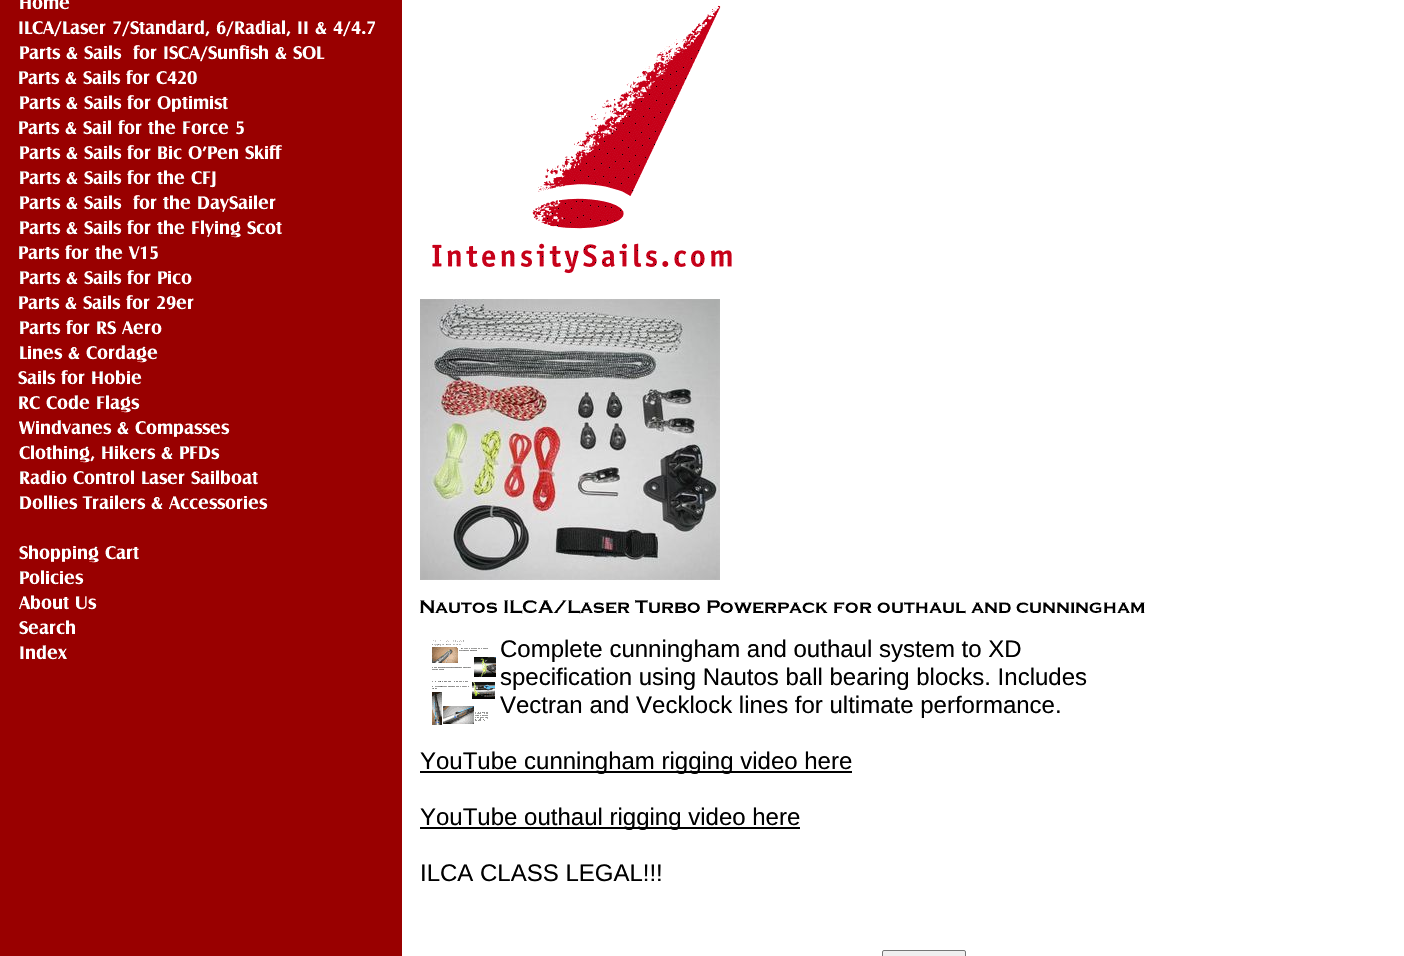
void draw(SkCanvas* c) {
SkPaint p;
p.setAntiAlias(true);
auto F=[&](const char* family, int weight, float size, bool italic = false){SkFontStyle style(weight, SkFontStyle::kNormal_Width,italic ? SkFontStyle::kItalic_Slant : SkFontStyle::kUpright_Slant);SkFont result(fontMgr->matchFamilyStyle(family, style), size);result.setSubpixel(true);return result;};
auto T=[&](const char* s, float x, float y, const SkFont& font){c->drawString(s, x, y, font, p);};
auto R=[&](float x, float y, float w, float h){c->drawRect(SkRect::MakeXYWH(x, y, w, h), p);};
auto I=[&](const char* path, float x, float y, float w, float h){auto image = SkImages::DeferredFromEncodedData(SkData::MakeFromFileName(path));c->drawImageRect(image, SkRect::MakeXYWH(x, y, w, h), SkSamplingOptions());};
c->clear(0xffffffff);
p.setColor(0xff990000);
R(0,0,402,956);
I("1.png",18,0,357,660);
I("2.png",432,5,300,269);
I("3.png",420,299,300,281);
I("4.png",420,600,725,14);
I("5.png",432,640,64,85);
auto f1 = F("Liberation Sans",400,24);
p.setColor(0xff000000);
T("Complete cunningham and outhaul system to XD",500,657,f1);
T("specification using Nautos ball bearing blocks. Includes",500,685,f1);
T("Vectran and Vecklock lines for ultimate performance.",500,713,f1);
R(420,771,432,2);
T("YouTube cunningham rigging video here",420,769,f1);
R(420,827,380,2);
T("YouTube outhaul rigging video here",420,825,f1);
T("ILCA CLASS LEGAL!!!",420,881,f1);
p.setColor(0xffefefef);
c->drawRoundRect(SkRect::MakeXYWH(882.5,950.5,83,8),1.5,1.5,p);
p.setStroke(true);
p.setStrokeWidth(1);
p.setColor(0xff767676);
c->drawRoundRect(SkRect::MakeXYWH(882.5,950.5,83,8),1.5,1.5,p);
}
